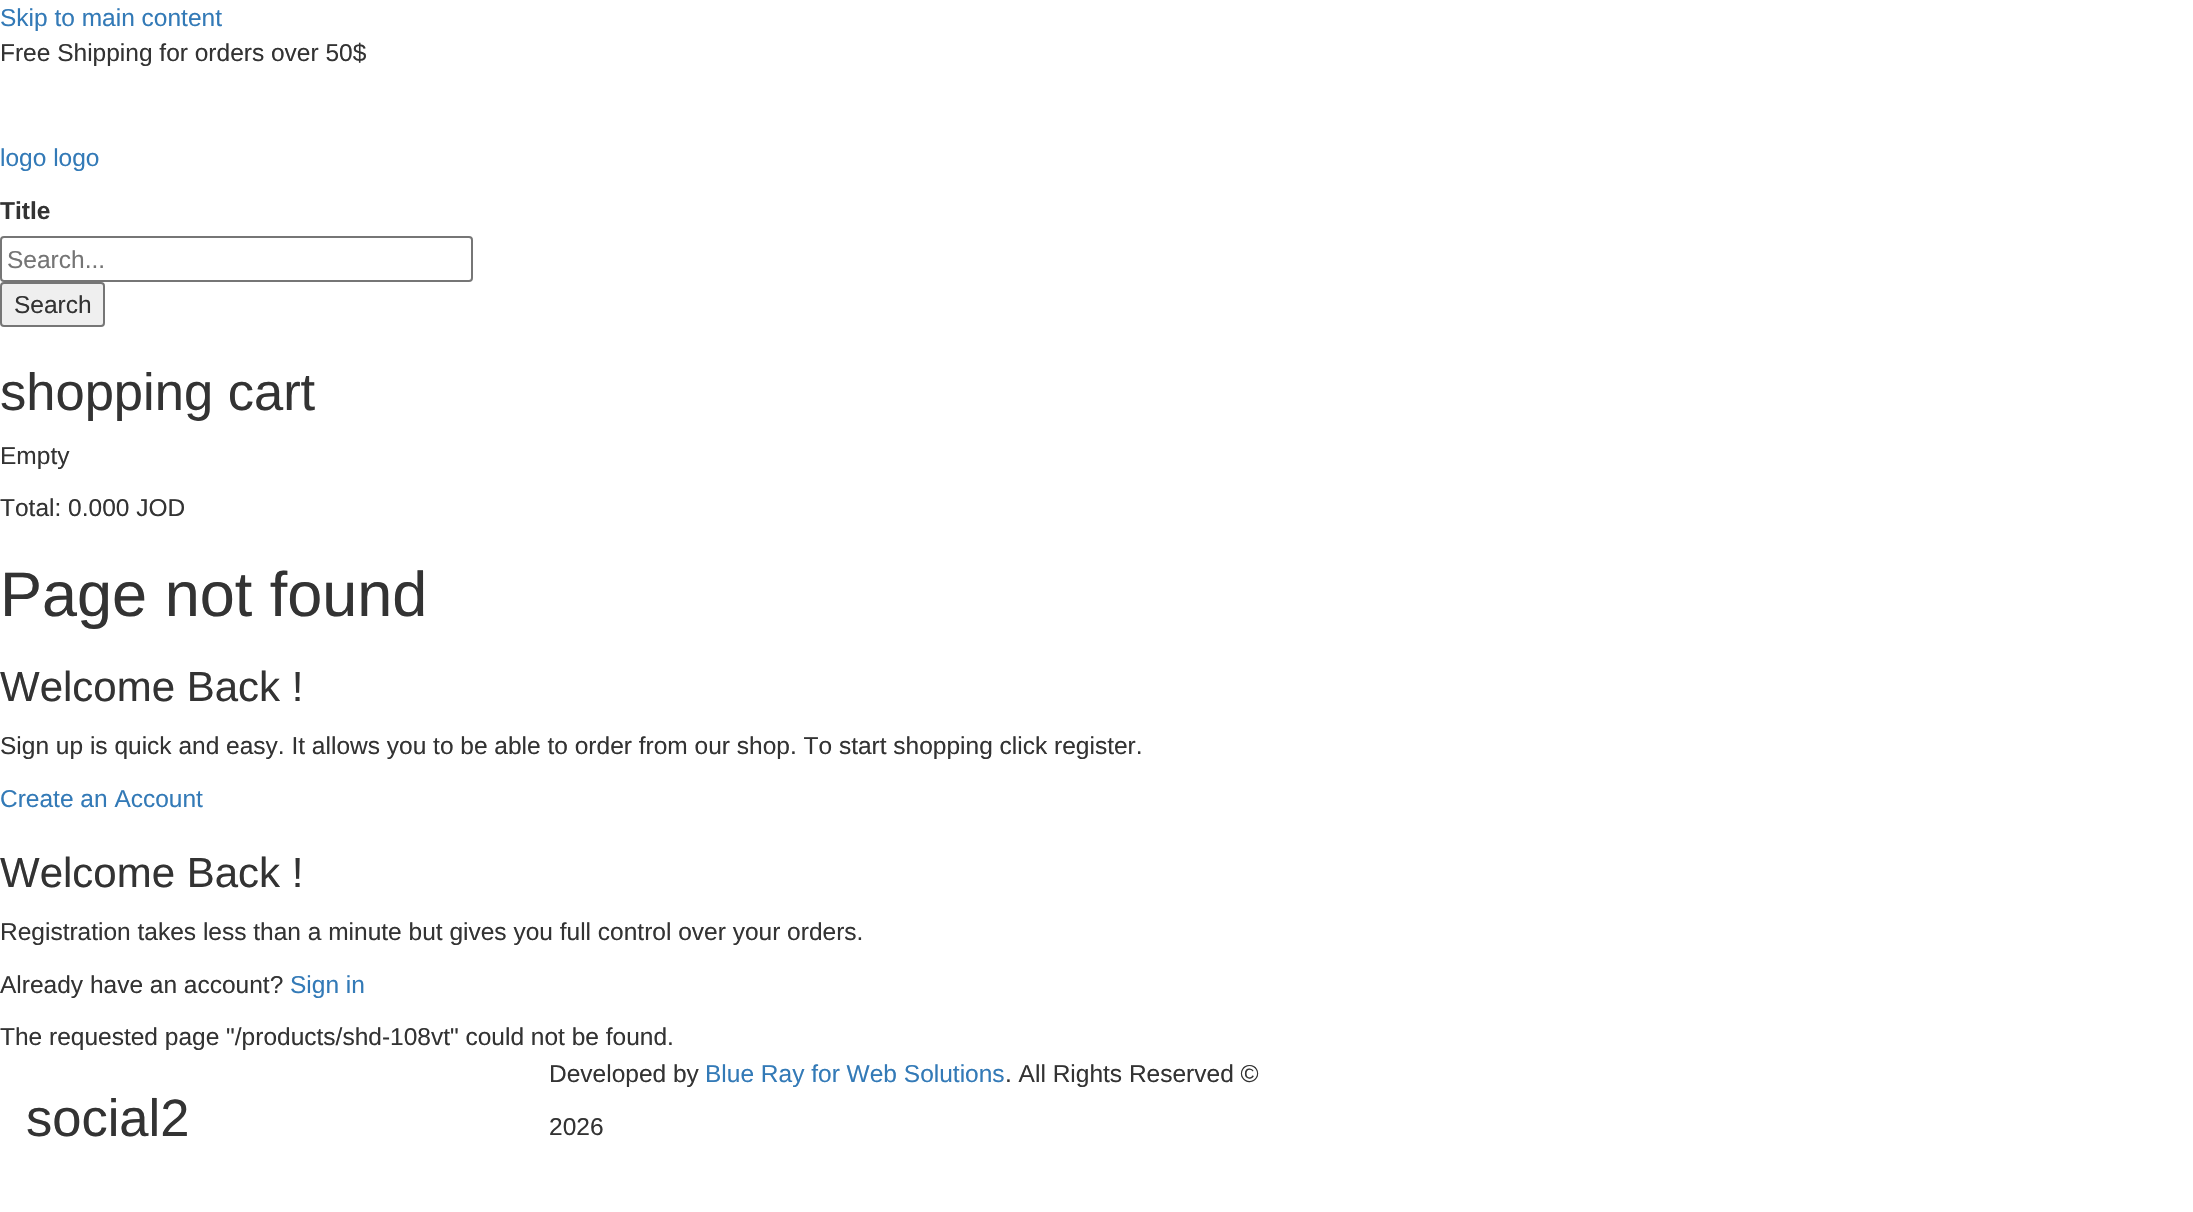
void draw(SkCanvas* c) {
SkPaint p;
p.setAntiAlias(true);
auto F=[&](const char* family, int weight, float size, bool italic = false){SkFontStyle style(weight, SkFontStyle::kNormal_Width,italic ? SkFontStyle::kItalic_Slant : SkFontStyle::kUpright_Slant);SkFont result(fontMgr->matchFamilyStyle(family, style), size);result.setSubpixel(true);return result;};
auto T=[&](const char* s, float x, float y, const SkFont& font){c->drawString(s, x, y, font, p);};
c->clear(0xffffffff);
auto f1 = F("Liberation Sans",400,24.5);
p.setColor(0xff337ab7);
T("Skip to main content",0,26,f1);
p.setColor(0xff333333);
T("Free Shipping for orders over 50$",0,61,f1);
p.setColor(0xff337ab7);
T("logo logo",0,166,f1);
auto f2 = F("Liberation Sans",700,24.5);
p.setColor(0xff333333);
T("Title",0,219,f2);
p.setStroke(true);
p.setStrokeWidth(2);
p.setColor(0xff767676);
c->drawRoundRect(SkRect::MakeXYWH(1,237,471,44),3,3,p);
p.setStroke(false);
p.setColor(0xff757575);
T("Search...",7,268,f1);
p.setColor(0xffefefef);
c->drawRoundRect(SkRect::MakeXYWH(1,283,103,43),3,3,p);
p.setStroke(true);
p.setColor(0xff767676);
c->drawRoundRect(SkRect::MakeXYWH(1,283,103,43),3,3,p);
p.setStroke(false);
p.setColor(0xff333333);
T("Search",14,313,f1);
auto f3 = F("Liberation Sans",400,52.5);
T("shopping cart",0,410,f3);
T("Empty",0,464,f1);
T("Total: 0.000 JOD",0,516,f1);
auto f4 = F("Liberation Sans",400,63);
T("Page not found",0,616,f4);
auto f5 = F("Liberation Sans",400,42);
T("Welcome Back !",0,701,f5);
T("Sign up is quick and easy. It allows you to be able to order from our shop. To start shopping click register.",0,754,f1);
p.setColor(0xff337ab7);
T("Create an Account",0,807,f1);
p.setColor(0xff333333);
T("Welcome Back !",0,887,f5);
T("Registration takes less than a minute but gives you full control over your orders.",0,940,f1);
T("Already have an account?",0,993,f1);
p.setColor(0xff337ab7);
T("Sign in",290,993,f1);
p.setColor(0xff333333);
T("The requested page \"/products/shd-108vt\" could not be found.",0,1045,f1);
T("social2",26,1136,f3);
T("Developed by",549,1082,f1);
p.setColor(0xff337ab7);
T("Blue Ray for Web Solutions",705,1082,f1);
p.setColor(0xff333333);
T(". All Rights Reserved ©",1005,1082,f1);
T("2026",549,1135,f1);
}
